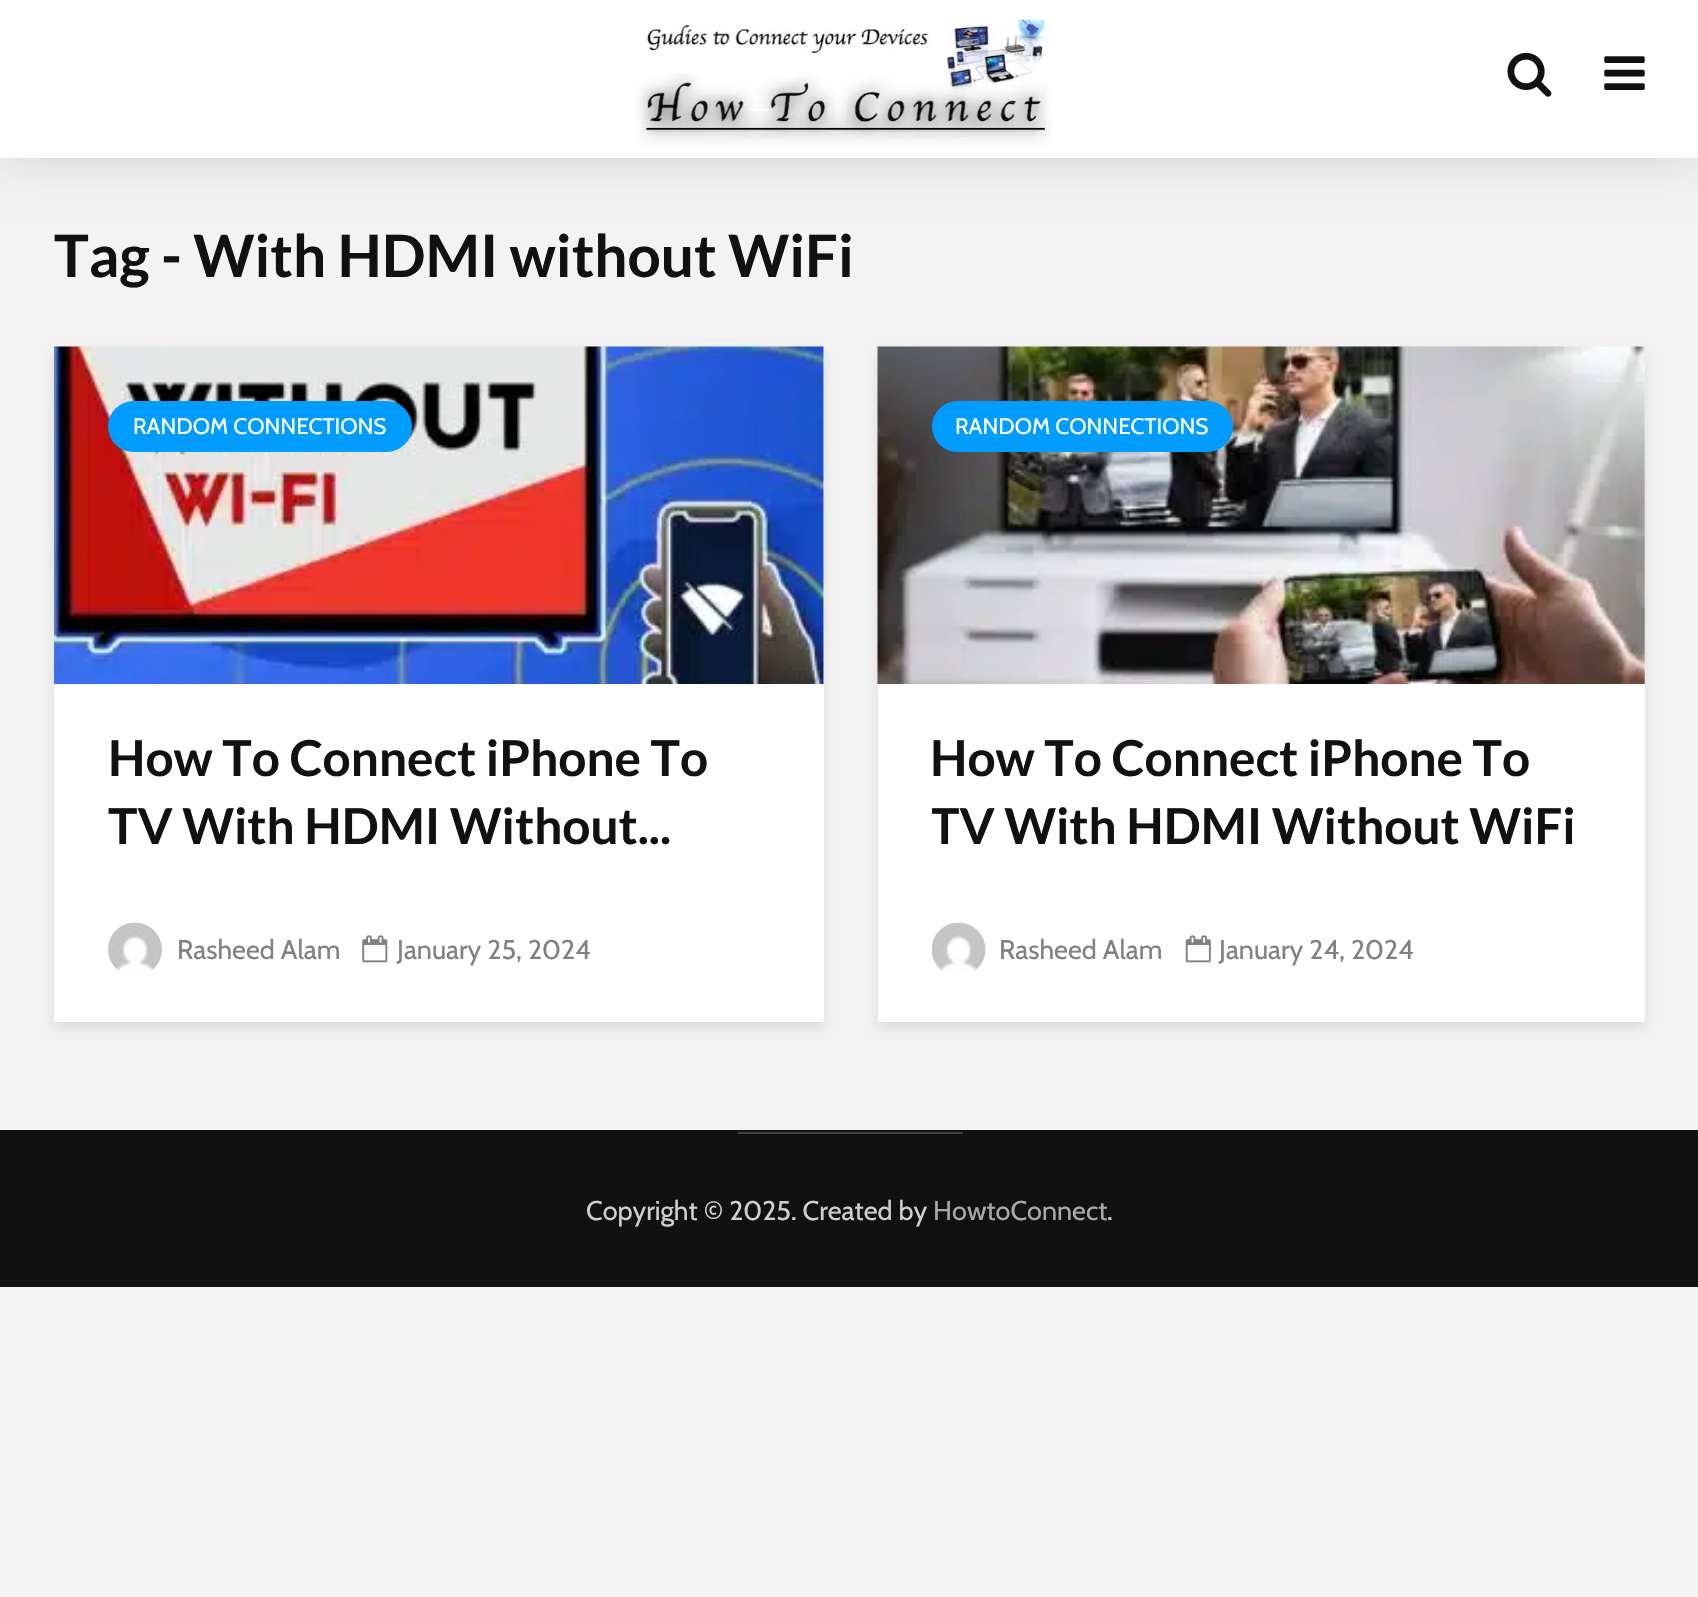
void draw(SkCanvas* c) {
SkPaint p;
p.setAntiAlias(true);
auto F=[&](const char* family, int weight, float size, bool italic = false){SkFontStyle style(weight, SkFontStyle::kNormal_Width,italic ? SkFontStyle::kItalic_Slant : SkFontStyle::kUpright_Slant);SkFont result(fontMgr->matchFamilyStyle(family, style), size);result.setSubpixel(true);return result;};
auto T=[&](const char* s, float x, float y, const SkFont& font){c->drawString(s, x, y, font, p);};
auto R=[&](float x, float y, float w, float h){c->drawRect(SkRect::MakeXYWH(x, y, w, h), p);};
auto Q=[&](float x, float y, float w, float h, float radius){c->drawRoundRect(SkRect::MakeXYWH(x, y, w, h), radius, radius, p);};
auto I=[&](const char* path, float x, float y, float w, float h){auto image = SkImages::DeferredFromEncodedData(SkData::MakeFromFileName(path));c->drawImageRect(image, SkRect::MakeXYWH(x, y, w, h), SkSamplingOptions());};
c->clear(0xfff3f3f3);
p.setColor(0x26000000);
p.setMaskFilter(SkMaskFilter::MakeBlur(kNormal_SkBlurStyle, 22.5));
c->drawRect(SkRect::MakeXYWH(0,0,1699,158),p);
p.setMaskFilter(nullptr);
p.setColor(0xffffffff);
R(0,0,1698,158);
I("1.png",635,18,417,128);
I("2.png",1507,52,45,45);
I("3.png",1604,56,41,34);
auto f1 = F("Lato",700,58.5);
p.setColor(0xff111111);
T("Tag - With HDMI without WiFi",54,277,f1);
p.setColor(0x1a000101);
p.setMaskFilter(SkMaskFilter::MakeBlur(kNormal_SkBlurStyle, 5.5));
c->drawRect(SkRect::MakeXYWH(54,353,770,675),p);
p.setMaskFilter(nullptr);
p.setColor(0xffffffff);
R(54,347,770,675);
I("4.png",54,346,770,338);
p.setColor(0xff009cff);
Q(108,401,304,51,25.5);
auto f2 = F("Cabin",400,22.5);
p.setColor(0xffffffff);
T("RANDOM CONNECTIONS",133,434,f2);
auto f3 = F("Lato",700,49.5);
p.setColor(0xff111111);
T("How To Connect iPhone To",108,776,f3);
T("TV With HDMI Without...",108,844,f3);
I("5.png",108,922,54,52);
auto f4 = F("Cabin",400,27);
p.setColor(0xff818181);
T("Rasheed Alam",177,959,f4);
I("6.png",362,935,26,28);
T("January 25, 2024",397,959,f4);
p.setColor(0x1a000101);
p.setMaskFilter(SkMaskFilter::MakeBlur(kNormal_SkBlurStyle, 5.5));
c->drawRect(SkRect::MakeXYWH(878,353,767,675),p);
p.setMaskFilter(nullptr);
p.setColor(0xffffffff);
R(878,347,767,675);
I("7.png",877,346,768,338);
p.setColor(0xff009cff);
Q(932,401,301,51,25.5);
p.setColor(0xffffffff);
T("RANDOM CONNECTIONS",955,434,f2);
p.setColor(0xff111111);
T("How To Connect iPhone To",930,776,f3);
c->save();
c->clipRect(SkRect::MakeXYWH(932,725,659,191));
T("TV With HDMI Without WiFi",930,844,f3);
c->restore();
I("8.png",931,922,55,50);
p.setColor(0xff818181);
T("Rasheed Alam",999,959,f4);
I("9.png",1185,935,26,28);
T("January 24, 2024",1219,959,f4);
p.setColor(0xff111111);
R(0,1130,1698,157);
p.setColor(0xff414141);
R(738,1132,225,2);
p.setColor(0xffcfcfcf);
T("Copyright © 2025. Created by",586,1220,f4);
p.setColor(0xffa9a9a9);
T("HowtoConnect",933,1220,f4);
p.setColor(0xffcfcfcf);
T(".",1107,1220,f4);
}
